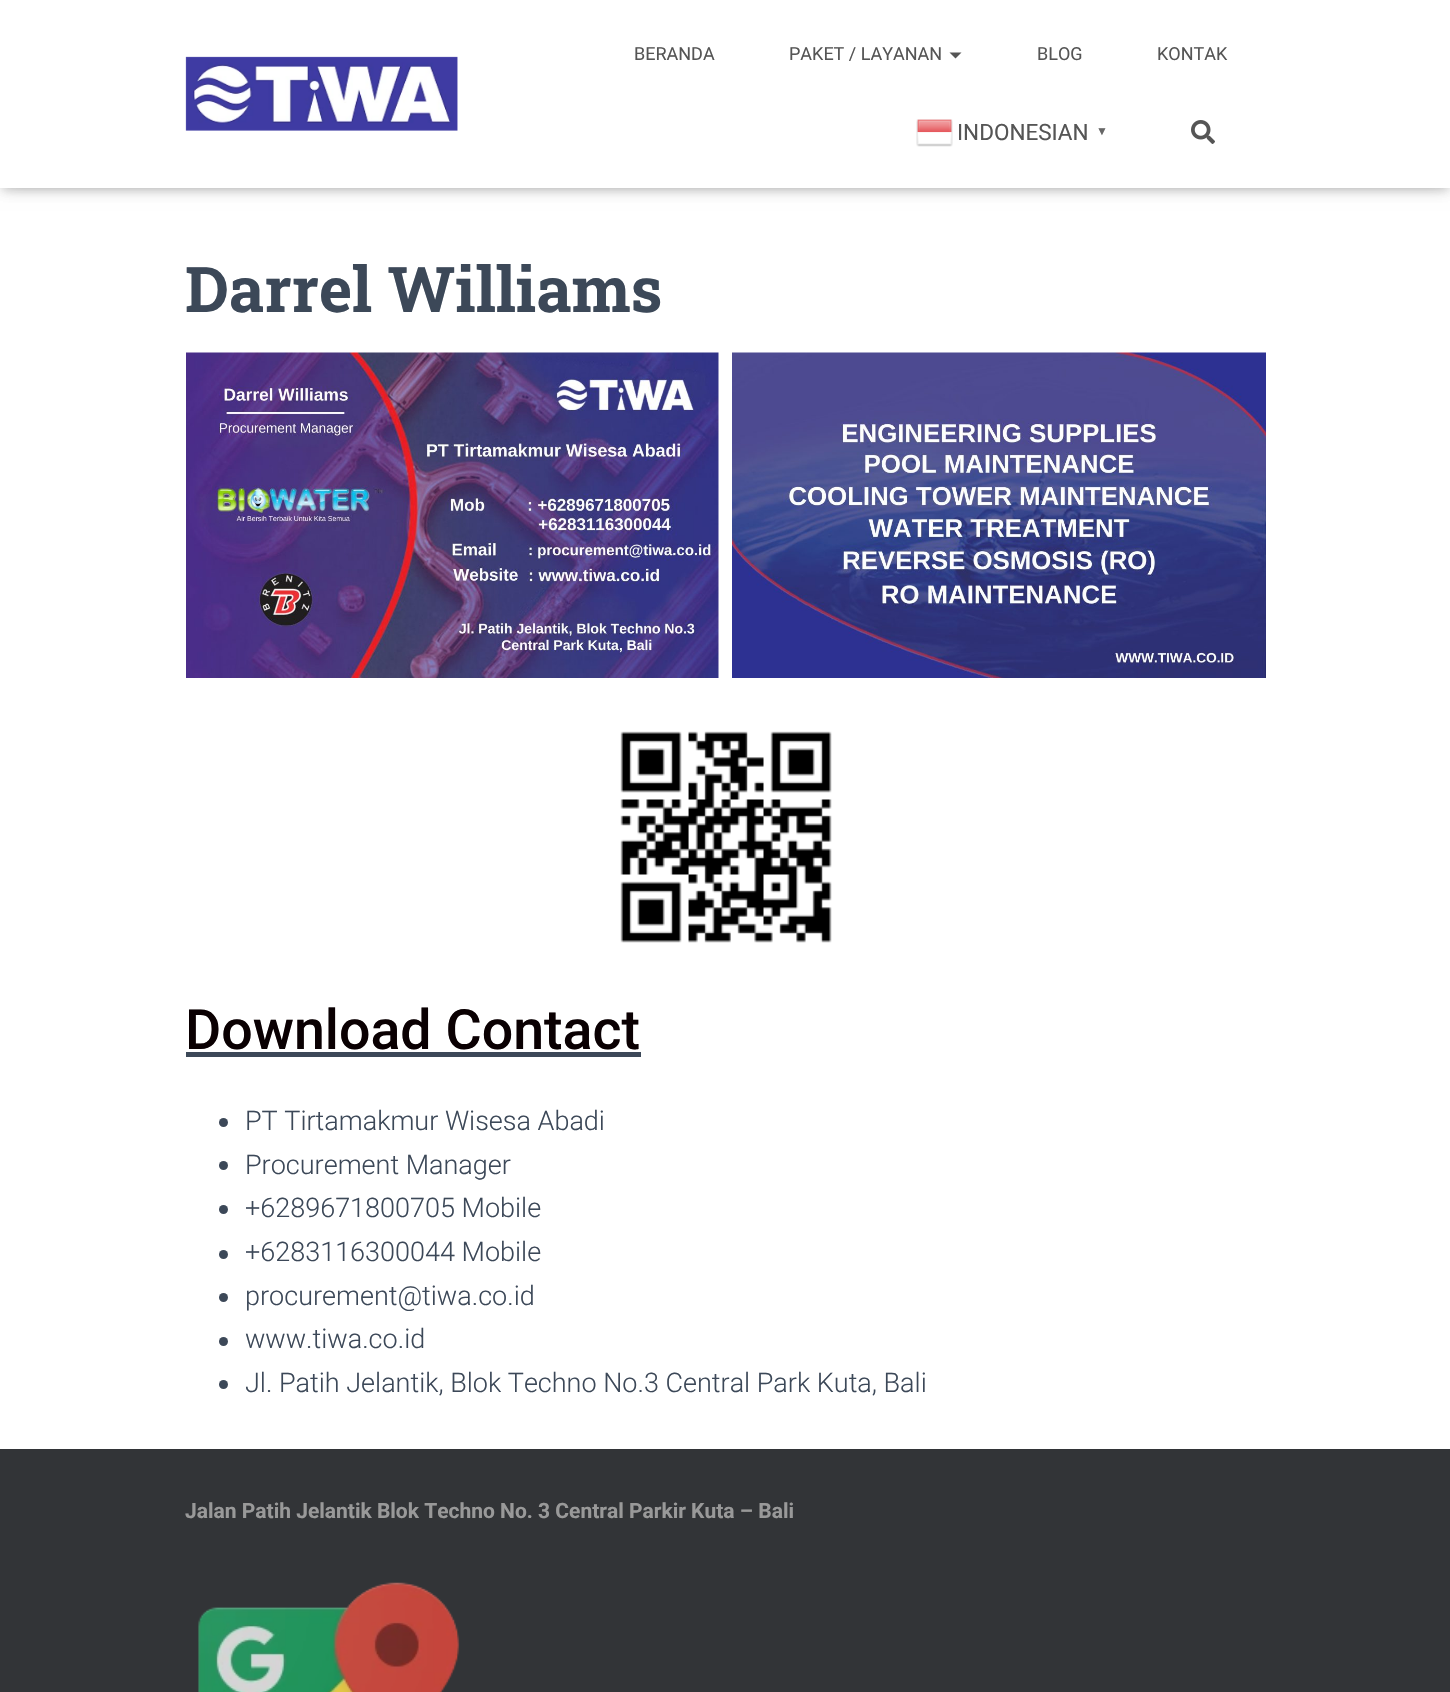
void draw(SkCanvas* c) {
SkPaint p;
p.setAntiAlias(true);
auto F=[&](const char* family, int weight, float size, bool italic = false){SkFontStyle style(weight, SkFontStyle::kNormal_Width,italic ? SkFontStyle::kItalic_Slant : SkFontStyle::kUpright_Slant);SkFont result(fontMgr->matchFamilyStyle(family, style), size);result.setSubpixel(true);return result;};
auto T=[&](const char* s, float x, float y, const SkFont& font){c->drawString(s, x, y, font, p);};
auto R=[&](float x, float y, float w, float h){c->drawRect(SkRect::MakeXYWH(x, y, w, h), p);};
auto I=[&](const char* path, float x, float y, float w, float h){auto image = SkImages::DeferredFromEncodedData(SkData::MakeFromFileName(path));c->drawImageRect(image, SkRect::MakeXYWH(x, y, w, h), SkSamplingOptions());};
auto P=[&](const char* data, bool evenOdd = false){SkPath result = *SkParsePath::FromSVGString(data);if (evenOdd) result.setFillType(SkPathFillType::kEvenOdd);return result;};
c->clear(0xff323437);
p.setColor(0xffffffff);
R(0,188,1450,1261);
p.setColor(0x1a000000);
p.setMaskFilter(SkMaskFilter::MakeBlur(kNormal_SkBlurStyle, 4));
c->drawRect(SkRect::MakeXYWH(3,9,1445,182),p);
p.setMaskFilter(nullptr);
p.setColor(0x1f000000);
p.setMaskFilter(SkMaskFilter::MakeBlur(kNormal_SkBlurStyle, 7.5));
c->drawRect(SkRect::MakeXYWH(0,2,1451,187),p);
p.setMaskFilter(nullptr);
p.setColor(0x6b000000);
p.setMaskFilter(SkMaskFilter::MakeBlur(kNormal_SkBlurStyle, 7.5));
c->drawRect(SkRect::MakeXYWH(9,11,1433,169),p);
p.setMaskFilter(nullptr);
p.setColor(0xffffffff);
R(0,0,1450,188);
I("1.png",185,56,273,75);
auto f1 = F("Roboto",400,18);
p.setColor(0xff555555);
T("BERANDA",634,60,f1);
T("PAKET / LAYANAN",789,60,f1);
c->drawPath(P("M949.5 52.5h12l-6 6z"),p);
T("BLOG",1037,60,f1);
T("KONTAK",1157,60,f1);
I("2.png",916,119,37,28);
auto f2 = F("Roboto",400,22.5);
T("INDONESIAN",957,140,f2);
auto f3 = F("Liberation Sans",700,12);
p.setColor(0xff666666);
T("▼",1096,135,f3);
I("3.png",1191,120,24,24);
auto f4 = F("Roboto Slab",700,63);
p.setColor(0xff3c4858);
T("Darrel Williams",185,312,f4);
I("4.png",186,352,533,326);
I("5.png",732,352,534,326);
I("6.png",620,731,212,212);
auto f5 = F("Roboto",500,55.5);
p.setColor(0xff0a0002);
T("Download Contact",185,1049,f5);
p.setColor(0xff3c4858);
R(186,1052,455,5);
c->drawCircle(223.5,1122.5,4.5,p);
auto f6 = F("Roboto",300,27);
T("PT Tirtamakmur Wisesa Abadi",245,1130,f6);
c->drawCircle(223.5,1165.5,4.5,p);
T("Procurement Manager",245,1174,f6);
c->drawCircle(223.5,1209.5,4.5,p);
T("+6289671800705 Mobile",245,1217,f6);
c->drawCircle(223.5,1254.5,4.5,p);
T("+6283116300044 Mobile",245,1261,f6);
c->drawCircle(223.5,1297.5,4.5,p);
T("procurement@tiwa.co.id",245,1305,f6);
c->drawCircle(223.5,1341.5,4.5,p);
T("www.tiwa.co.id",245,1348,f6);
c->drawCircle(223.5,1384.5,4.5,p);
T("Jl. Patih Jelantik, Blok Techno No.3 Central Park Kuta, Bali",245,1392,f6);
auto f7 = F("Roboto",700,21);
p.setColor(0xff999999);
T("Jalan Patih Jelantik Blok Techno No. 3 Central Parkir Kuta – Bali",185,1518,f7);
I("7.png",198,1582,262,110);
}
